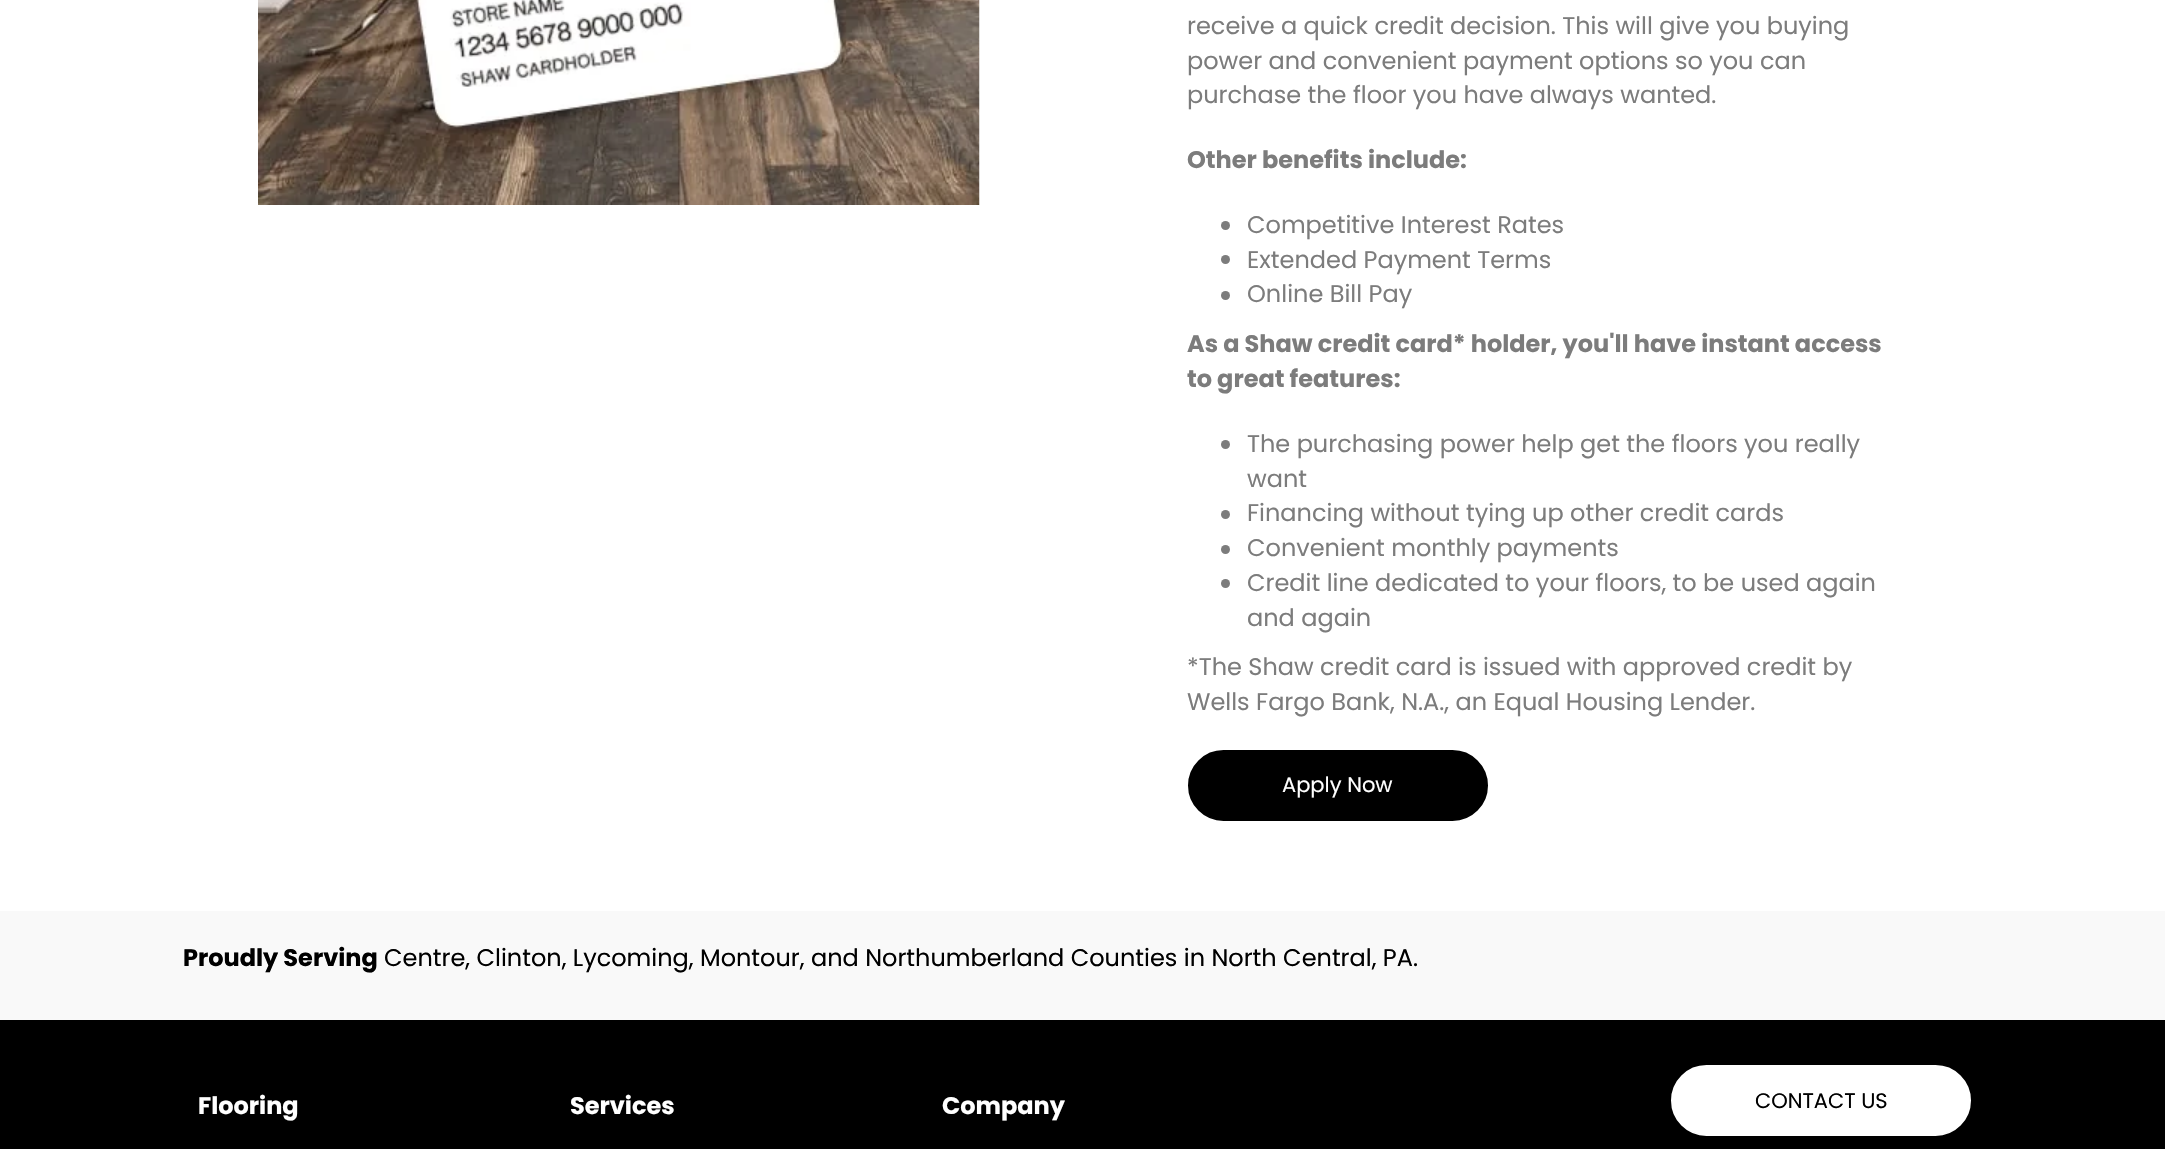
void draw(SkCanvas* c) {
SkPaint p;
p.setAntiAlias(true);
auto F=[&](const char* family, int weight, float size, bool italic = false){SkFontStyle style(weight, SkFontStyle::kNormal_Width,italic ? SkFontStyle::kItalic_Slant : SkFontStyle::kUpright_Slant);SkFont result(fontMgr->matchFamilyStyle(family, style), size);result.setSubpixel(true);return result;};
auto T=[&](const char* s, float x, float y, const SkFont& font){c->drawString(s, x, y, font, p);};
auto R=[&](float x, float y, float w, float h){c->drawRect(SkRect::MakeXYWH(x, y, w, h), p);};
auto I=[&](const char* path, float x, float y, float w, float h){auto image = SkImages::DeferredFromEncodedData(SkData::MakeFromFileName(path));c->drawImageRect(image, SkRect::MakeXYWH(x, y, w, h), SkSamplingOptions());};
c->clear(0xffffffff);
I("1.png",258,0,722,205);
auto f1 = F("Poppins",400,24);
p.setColor(0xff7c7c7c);
T("receive a quick credit decision. This will give you buying",1187,34,f1);
T("power and convenient payment options so you can",1187,69,f1);
T("purchase the floor you have always wanted.",1187,103,f1);
auto f2 = F("Poppins",700,24);
T("Other benefits include:",1187,168,f2);
c->drawCircle(1225.5,225.5,4.5,p);
T("Competitive Interest Rates",1247,233,f1);
c->drawCircle(1225.5,259.5,4.5,p);
T("Extended Payment Terms",1247,268,f1);
c->drawCircle(1225.5,295.5,4.5,p);
T("Online Bill Pay",1247,302,f1);
T("As a Shaw credit card* holder, you'll have instant access",1187,352,f2);
T("to great features:",1187,387,f2);
c->drawCircle(1225.5,444.5,4.5,p);
T("The purchasing power help get the floors you really",1247,452,f1);
T("want",1247,487,f1);
c->drawCircle(1225.5,514.5,4.5,p);
T("Financing without tying up other credit cards",1247,521,f1);
c->drawCircle(1225.5,549.5,4.5,p);
T("Convenient monthly payments",1247,556,f1);
c->drawCircle(1225.5,583.5,4.5,p);
T("Credit line dedicated to your floors, to be used again",1247,591,f1);
T("and again",1247,626,f1);
T("*The Shaw credit card is issued with approved credit by",1187,675,f1);
T("Wells Fargo Bank, N.A., an Equal Housing Lender.",1187,710,f1);
p.setColor(0xff000000);
c->drawRoundRect(SkRect::MakeXYWH(1189,751,298,69),34.5,34.5,p);
p.setStroke(true);
p.setStrokeWidth(2);
c->drawRoundRect(SkRect::MakeXYWH(1189,751,298,69),34.5,34.5,p);
auto f3 = F("Poppins",400,21);
p.setStroke(false);
p.setColor(0xffffffff);
T("Apply Now",1282,792,f3);
p.setColor(0xfff9f9f9);
R(0,911,2165,109);
p.setColor(0xff000000);
T("Proudly Serving",183,966,f2);
T("Centre, Clinton, Lycoming, Montour, and Northumberland Counties in North Central, PA.",384,966,f1);
R(0,1020,2165,129);
p.setColor(0xffffffff);
T("Flooring",198,1114,f2);
T("Services",570,1114,f2);
T("Company",942,1114,f2);
c->drawRoundRect(SkRect::MakeXYWH(1672,1066,298,69),34.5,34.5,p);
p.setStroke(true);
c->drawRoundRect(SkRect::MakeXYWH(1672,1066,298,69),34.5,34.5,p);
p.setStroke(false);
p.setColor(0xff000000);
T("CONTACT US",1755,1108,f3);
}
